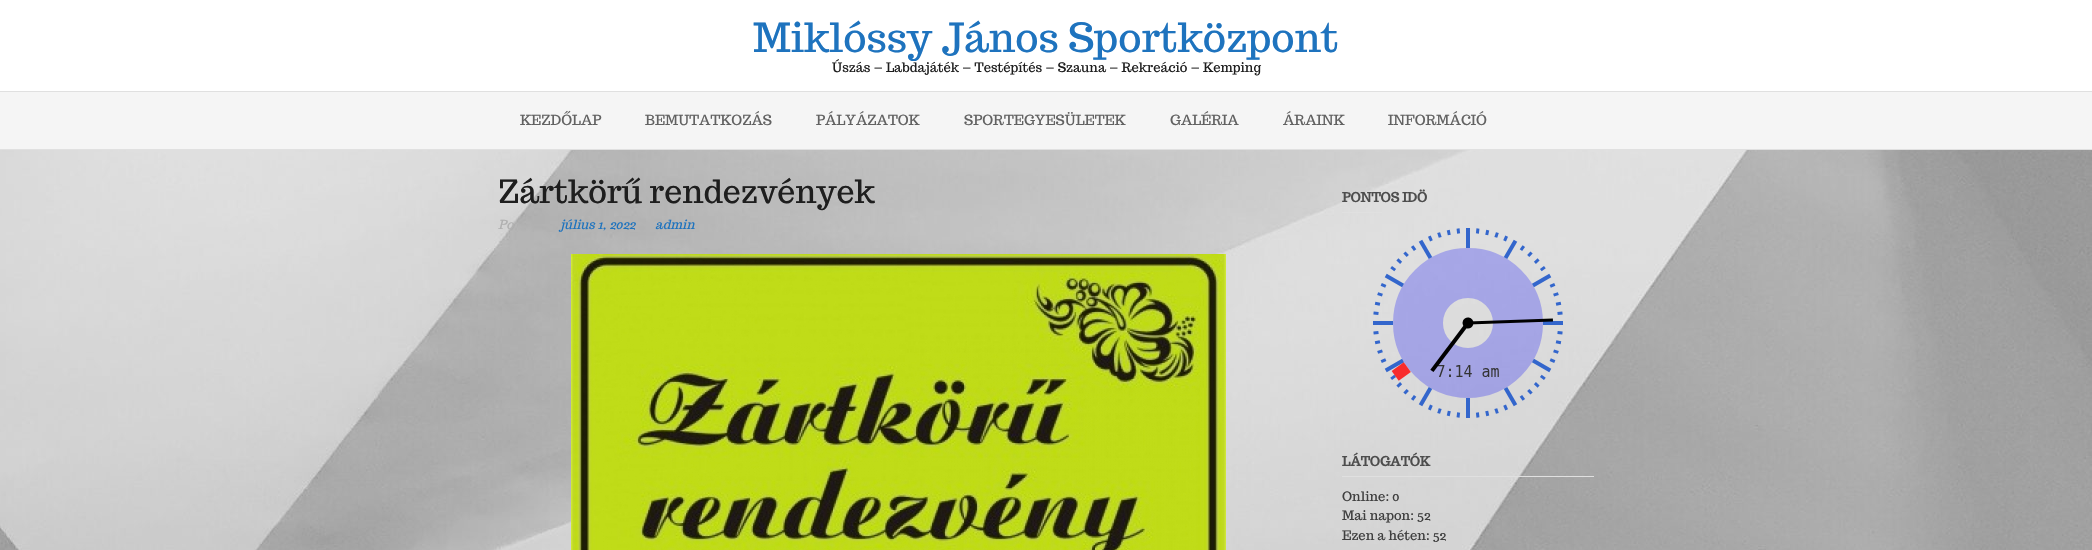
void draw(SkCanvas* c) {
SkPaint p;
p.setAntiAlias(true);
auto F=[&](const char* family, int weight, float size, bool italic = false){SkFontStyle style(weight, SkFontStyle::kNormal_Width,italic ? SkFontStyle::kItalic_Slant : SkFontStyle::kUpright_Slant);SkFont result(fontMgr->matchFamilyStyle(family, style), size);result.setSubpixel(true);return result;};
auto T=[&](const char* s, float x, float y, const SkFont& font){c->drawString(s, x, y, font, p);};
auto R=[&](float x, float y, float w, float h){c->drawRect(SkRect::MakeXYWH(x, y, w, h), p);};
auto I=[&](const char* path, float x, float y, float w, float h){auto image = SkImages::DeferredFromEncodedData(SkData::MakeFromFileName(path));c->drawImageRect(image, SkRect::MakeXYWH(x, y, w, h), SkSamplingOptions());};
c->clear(0xffffffff);
I("1.png",0,150,2092,400);
p.setColor(0xffe0e0e0);
R(0,149,2092,1);
auto f1 = F("Trocchi",400,40);
p.setColor(0xff1e73be);
T("Miklóssy János Sportközpont",753,52,f1);
auto f2 = F("Trocchi",400,13);
p.setColor(0xff1e1e1e);
T("Úszás – Labdajáték – Testépítés – Szauna – Rekreáció – Kemping",832,72,f2);
p.setColor(0xfff5f5f5);
R(0,92,2092,57);
p.setColor(0xffe0e0e0);
R(0,91,2092,1);
auto f3 = F("Trocchi",400,14);
p.setColor(0xff626262);
T("KEZDŐLAP",520,125,f3);
T("BEMUTATKOZÁS",645,125,f3);
T("PÁLYÁZATOK",816,125,f3);
T("SPORTEGYESÜLETEK",964,125,f3);
T("GALÉRIA",1170,125,f3);
T("ÁRAINK",1283,125,f3);
T("INFORMÁCIÓ",1388,125,f3);
auto f4 = F("Trocchi",400,32);
p.setColor(0xff1e1e1e);
T("Zártkörű rendezvények",498,203,f4);
auto f5 = F("Trocchi",400,12.5,true);
p.setColor(0xffb0b0b0);
T("Po",498,229,f5);
p.setColor(0xff1e73be);
T("július 1, 2022",560,229,f5);
T("admin",655,229,f5);
I("2.png",571,254,655,296);
p.setColor(0xffe0e0e0);
R(1342,212,40,1);
auto f6 = F("Trocchi",700,13);
p.setColor(0xff4d4d4d);
T("PONTOS IDÖ",1342,202,f6);
I("3.png",1373,228,190,190);
p.setColor(0xffe0e0e0);
R(1342,476,252,1);
p.setColor(0xff4d4d4d);
T("LÁTOGATÓK",1342,466,f6);
p.setColor(0xff3f3f3f);
T("Online: 0",1342,501,f2);
T("Mai napon: 52",1342,520,f2);
T("Ezen a héten: 52",1342,540,f2);
}
